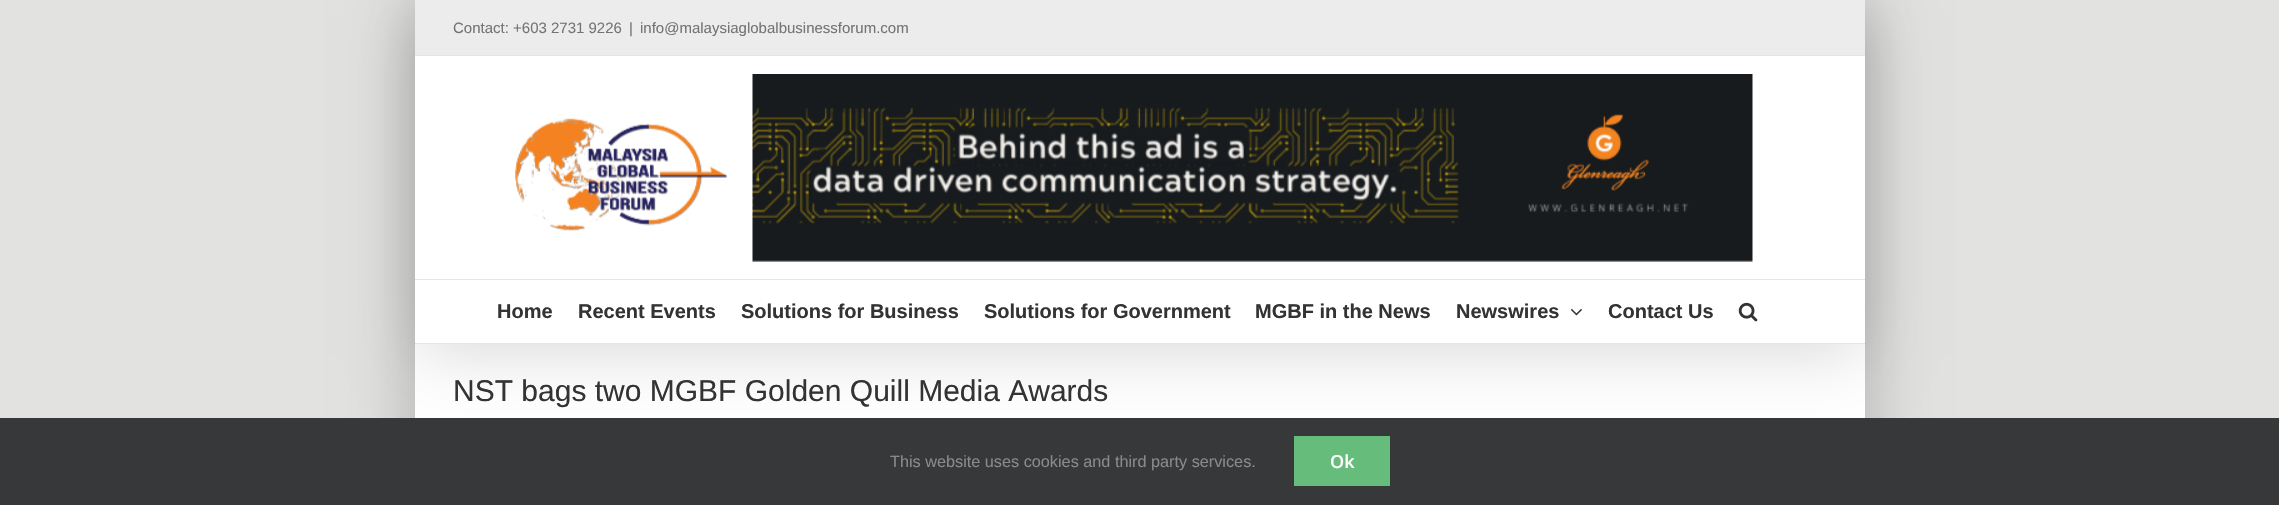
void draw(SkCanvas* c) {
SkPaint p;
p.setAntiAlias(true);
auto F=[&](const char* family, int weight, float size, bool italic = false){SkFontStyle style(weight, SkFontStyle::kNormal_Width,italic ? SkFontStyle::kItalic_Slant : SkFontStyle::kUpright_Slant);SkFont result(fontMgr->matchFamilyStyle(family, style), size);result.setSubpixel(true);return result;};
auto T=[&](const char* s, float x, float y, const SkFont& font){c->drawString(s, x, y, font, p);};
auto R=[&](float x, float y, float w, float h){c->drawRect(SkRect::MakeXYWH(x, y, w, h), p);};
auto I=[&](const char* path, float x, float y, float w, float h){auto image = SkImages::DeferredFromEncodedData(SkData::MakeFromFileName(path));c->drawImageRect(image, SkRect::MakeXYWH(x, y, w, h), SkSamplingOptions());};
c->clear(0xffe2e2e1);
p.setColor(0x38000000);
p.setMaskFilter(SkMaskFilter::MakeBlur(kNormal_SkBlurStyle, 31));
c->drawRect(SkRect::MakeXYWH(414,-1,1452,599),p);
p.setMaskFilter(nullptr);
p.setColor(0xffffffff);
R(415,344,1450,74);
p.setColor(0x24000000);
p.setMaskFilter(SkMaskFilter::MakeBlur(kNormal_SkBlurStyle, 31));
c->drawRect(SkRect::MakeXYWH(418,15,1445,339),p);
p.setMaskFilter(nullptr);
p.setColor(0xffececec);
R(415,0,1450,55);
p.setColor(0xffe5e5e5);
R(415,55,1450,1);
auto f1 = F("Liberation Sans",400,15);
p.setColor(0xff747474);
T("Contact: +603 2731 9226",453,33,f1);
T("|",629,33,f1);
T("info@malaysiaglobalbusinessforum.com",640,33,f1);
p.setColor(0xffffffff);
R(415,56,1450,223);
p.setColor(0xffe5e5e5);
R(415,279,1450,1);
I("1.png",515,118,213,113);
I("2.png",752,74,1001,188);
p.setColor(0xffffffff);
R(415,280,1450,63);
p.setColor(0xffe5e5e5);
R(415,343,1450,1);
auto f2 = F("Liberation Sans",700,20);
p.setColor(0xff333333);
T("Home",497,318,f2);
T("Recent Events",578,318,f2);
T("Solutions for Business",741,318,f2);
T("Solutions for Government",984,318,f2);
T("MGBF in the News",1255,318,f2);
T("Newswires",1456,318,f2);
I("3.png",1570,308,12,8);
T("Contact Us",1608,318,f2);
I("4.png",1738,302,20,20);
auto f3 = F("Liberation Sans",400,30);
T("NST bags two MGBF Golden Quill Media Awards",453,401,f3);
p.setColor(0xff363839);
R(0,418,2279,87);
auto f4 = F("Liberation Sans",400,16.25);
p.setColor(0xff8c8989);
T("This website uses cookies and third party services.",890,467,f4);
p.setColor(0xff65bc7b);
R(1294,436,96,50);
auto f5 = F("Open Sans",600,18);
p.setColor(0xffffffff);
T("Ok",1330,468,f5);
}
